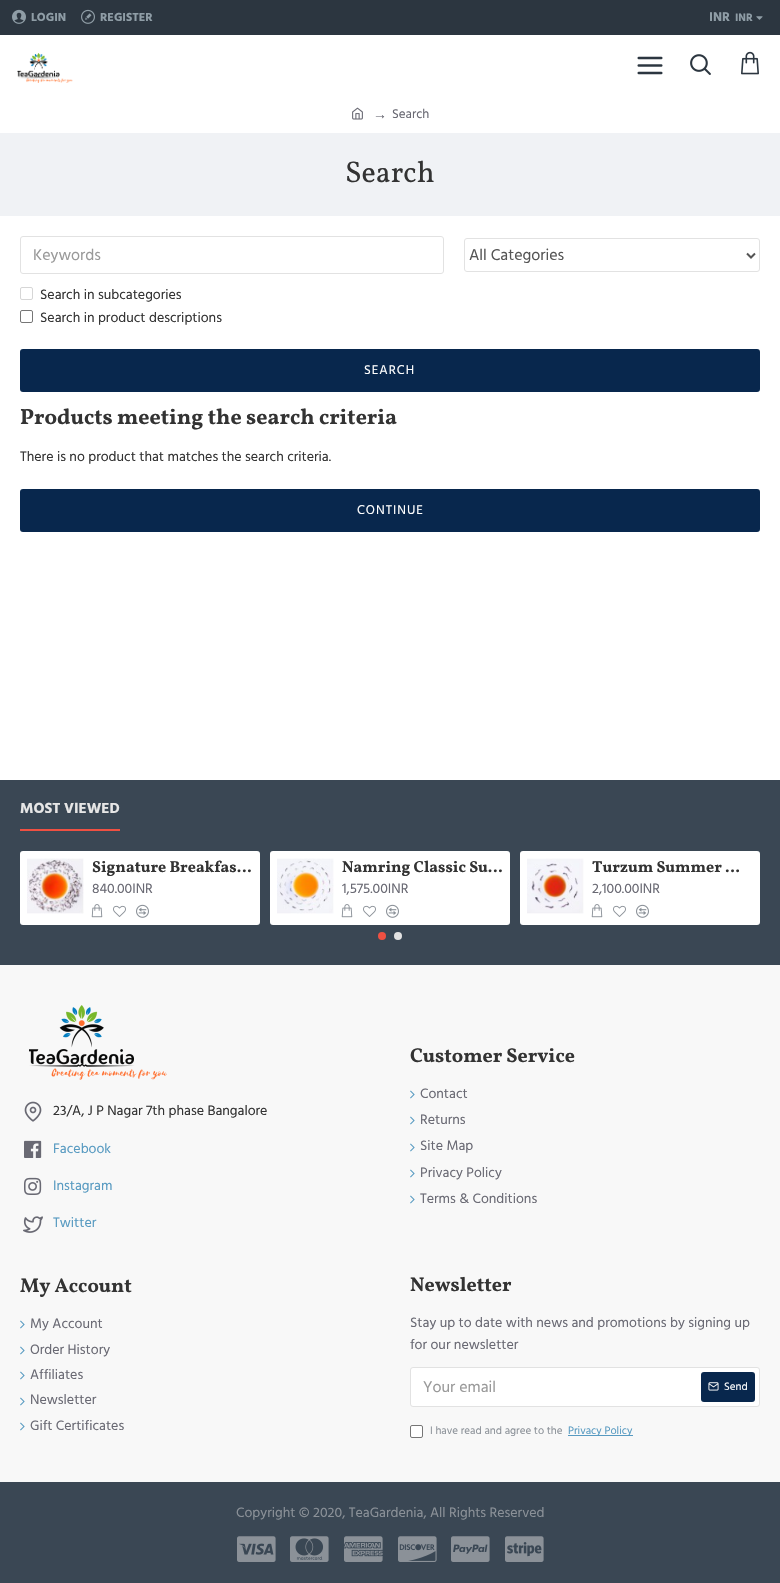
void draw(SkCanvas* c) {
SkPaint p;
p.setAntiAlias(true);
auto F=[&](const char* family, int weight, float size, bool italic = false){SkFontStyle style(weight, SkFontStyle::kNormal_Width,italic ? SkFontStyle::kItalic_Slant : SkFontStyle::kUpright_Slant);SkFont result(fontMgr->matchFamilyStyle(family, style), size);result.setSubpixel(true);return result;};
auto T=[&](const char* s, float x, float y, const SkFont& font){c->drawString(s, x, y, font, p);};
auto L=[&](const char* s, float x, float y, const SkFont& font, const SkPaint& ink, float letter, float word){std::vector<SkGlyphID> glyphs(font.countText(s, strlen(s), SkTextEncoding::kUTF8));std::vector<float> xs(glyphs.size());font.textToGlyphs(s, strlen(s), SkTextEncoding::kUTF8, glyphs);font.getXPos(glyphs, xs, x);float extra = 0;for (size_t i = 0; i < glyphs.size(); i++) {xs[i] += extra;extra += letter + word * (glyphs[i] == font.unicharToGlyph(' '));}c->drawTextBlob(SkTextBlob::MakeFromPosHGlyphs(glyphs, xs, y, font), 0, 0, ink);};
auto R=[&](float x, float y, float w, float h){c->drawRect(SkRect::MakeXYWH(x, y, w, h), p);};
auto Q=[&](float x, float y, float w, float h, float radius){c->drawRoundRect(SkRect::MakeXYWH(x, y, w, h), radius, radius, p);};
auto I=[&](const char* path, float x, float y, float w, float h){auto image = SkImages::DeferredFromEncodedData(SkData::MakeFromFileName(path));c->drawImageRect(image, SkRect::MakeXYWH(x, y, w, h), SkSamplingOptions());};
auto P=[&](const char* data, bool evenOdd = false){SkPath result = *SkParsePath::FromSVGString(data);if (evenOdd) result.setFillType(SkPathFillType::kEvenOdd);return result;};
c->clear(0xffffffff);
p.setColor(0xff2c3640);
R(0,0,780,35);
I("1.png",12,9,14,15);
auto f1 = F("Hind Madurai",700,12);
p.setColor(0xff8f9da6);
T("LOGIN",31,21,f1);
I("2.png",81,9,14,15);
T("REGISTER",100,21,f1);
auto f2 = F("Hind Madurai",700,13);
T("INR",709,21,f2);
auto f3 = F("Hind Madurai",700,11);
T("INR",735,21,f3);
I("3.png",756,16,7,4);
I("4.png",17,53,56,30);
I("5.png",637,56,26,19);
I("6.png",690,54,21,21);
I("7.png",741,51,18,24);
I("8.png",352,107,11,13);
auto f4 = F("Liberation Serif",400,14);
p.setColor(0xff696973);
T("→",373,119,f4);
auto f5 = F("Hind Madurai",400,13);
T("Search",392,118,f5);
p.setColor(0xfff0f2f5);
R(0,133,780,83);
auto f6 = F("Vollkorn",400,30);
p.setColor(0xff333333);
T("Search",345,182,f6);
p.setStroke(true);
p.setStrokeWidth(1);
p.setColor(0xffe2e2e2);
c->drawRoundRect(SkRect::MakeXYWH(20.5,236.5,423,37),2.5,2.5,p);
auto f7 = F("Hind Madurai",400,16);
p.setStroke(false);
p.setColor(0xff999999);
T("Keywords",33,260,f7);
p.setStroke(true);
p.setColor(0xffe2e2e2);
c->drawRoundRect(SkRect::MakeXYWH(464.5,238.5,295,33),2.5,2.5,p);
p.setStrokeWidth(2);
p.setColor(0xff555555);
c->drawPath(P("M747 253.5l4 4l4-4"),p);
p.setStroke(false);
T("All Categories",469,260,f7);
p.setStroke(true);
p.setStrokeWidth(1);
p.setColor(0xffd6d6d6);
c->drawRoundRect(SkRect::MakeXYWH(20.5,287.5,12,12),1.5,1.5,p);
auto f8 = F("Hind Madurai",400,14);
p.setStroke(false);
p.setColor(0xff333333);
T("Search in subcategories",40,299,f8);
p.setStroke(true);
p.setColor(0xff767676);
c->drawRoundRect(SkRect::MakeXYWH(20.5,310.5,12,12),1.5,1.5,p);
p.setStroke(false);
p.setColor(0xff333333);
T("Search in product descriptions",40,322,f8);
p.setColor(0xff08274d);
Q(20,349,740,43,3);
p.setColor(0xffffffff);
L("SEARCH",364,374,f5,p,1,0);
auto f9 = F("Vollkorn",700,22);
p.setColor(0xff333333);
T("Products meeting the search criteria",20,424,f9);
T("There is no product that matches the search criteria.",20,461,f8);
p.setColor(0xff08274d);
Q(20,489,740,43,3);
p.setColor(0xffffffff);
L("CONTINUE",357,514,f5,p,1,0);
p.setColor(0xfff8f8f8);
R(0,965,780,517);
p.setColor(0xff3a4754);
R(0,780,780,185);
p.setColor(0xffef5042);
R(20,829,100,2);
auto f10 = F("Hind Madurai",700,15);
p.setColor(0xffe6e6e6);
T("MOST VIEWED",20,813,f10);
p.setColor(0xffffffff);
Q(20,851,240,74,3);
I("9.png",27,858,57,56);
auto f11 = F("Vollkorn",700,16);
p.setColor(0xff333333);
T("Signature Breakfas…",92,872,f11);
p.setColor(0xff696973);
T("840.00INR",92,893,f8);
I("10.png",91,904,12,14);
I("11.png",113,905,13,12);
I("12.png",136,904,13,14);
p.setColor(0xffffffff);
Q(270,851,240,74,3);
I("13.png",277,858,57,56);
p.setColor(0xff333333);
T("Namring Classic Su…",342,872,f11);
p.setColor(0xff696973);
T("1,575.00INR",342,893,f8);
I("10.png",341,904,12,14);
I("11.png",363,905,13,12);
I("12.png",386,904,13,14);
p.setColor(0xffffffff);
Q(520,851,240,74,3);
I("14.png",527,858,57,56);
p.setColor(0xff333333);
T("Turzum Summer …",592,872,f11);
p.setColor(0xff696973);
T("2,100.00INR",592,893,f8);
I("10.png",591,904,12,14);
I("11.png",613,905,13,12);
I("12.png",636,904,13,14);
p.setColor(0xffef5042);
c->drawCircle(382,936,4,p);
p.setColor(0xffe2e2e2);
c->drawCircle(398,936,4,p);
I("15.png",29,1005,138,75);
I("16.png",24,1101,18,21);
p.setColor(0xff333333);
T("23/A, J P Nagar 7th phase Bangalore",53,1115,f8);
I("17.png",24,1140,18,18);
p.setColor(0xff579ac1);
T("Facebook",53,1153,f8);
I("18.png",24,1177,18,18);
T("Instagram",53,1190,f8);
I("19.png",23,1216,20,17);
T("Twitter",53,1227,f8);
auto f12 = F("Vollkorn",700,20);
p.setColor(0xff333333);
T("Customer Service",410,1062,f12);
I("20.png",410,1090,5,9);
p.setColor(0xff696973);
T("Contact",420,1098,f8);
I("20.png",410,1116,5,9);
T("Returns",420,1124,f8);
I("20.png",410,1143,5,9);
T("Site Map",420,1150,f8);
I("20.png",410,1169,5,9);
T("Privacy Policy",420,1177,f8);
I("20.png",410,1195,5,9);
T("Terms & Conditions",420,1203,f8);
p.setColor(0xff333333);
T("My Account",20,1292,f12);
I("20.png",20,1320,5,9);
p.setColor(0xff696973);
T("My Account",30,1328,f8);
I("20.png",20,1346,5,9);
T("Order History",30,1354,f8);
I("20.png",20,1371,5,9);
T("Affiliates",30,1379,f8);
I("20.png",20,1397,5,9);
T("Newsletter",30,1404,f8);
I("20.png",20,1422,5,9);
T("Gift Certificates",30,1430,f8);
p.setColor(0xff333333);
T("Newsletter",410,1291,f12);
p.setColor(0xff696973);
T("Stay up to date with news and promotions by signing up",410,1327,f8);
T("for our newsletter",410,1349,f8);
p.setColor(0xffffffff);
c->drawRoundRect(SkRect::MakeXYWH(410.5,1367.5,349,39),2.5,2.5,p);
p.setStroke(true);
p.setColor(0xffe2e2e2);
c->drawRoundRect(SkRect::MakeXYWH(410.5,1367.5,349,39),2.5,2.5,p);
p.setStroke(false);
p.setColor(0xff999999);
T("Your email",423,1392,f7);
p.setColor(0xff08274d);
Q(701,1372,54,30,3);
I("21.png",708,1382,11,9);
auto f13 = F("Hind Madurai",400,11);
p.setColor(0xffffffff);
T("Send",724,1390,f13);
c->drawRoundRect(SkRect::MakeXYWH(410.5,1425.5,12,12),1.5,1.5,p);
p.setStroke(true);
p.setColor(0xff767676);
c->drawRoundRect(SkRect::MakeXYWH(410.5,1425.5,12,12),1.5,1.5,p);
p.setStroke(false);
p.setColor(0xff8b9198);
T("I have read and agree to the",430,1434,f13);
p.setColor(0xff579ac1);
R(568,1435,65,1);
T("Privacy Policy",568,1434,f13);
p.setColor(0xff3a4754);
R(0,1482,780,101);
p.setColor(0xff8b9198);
T("Copyright © 2020, TeaGardenia, All Rights Reserved",236,1517,f8);
I("22.png",237,1536,39,26);
I("23.png",290,1536,39,26);
I("24.png",344,1536,39,26);
I("25.png",398,1536,39,26);
I("26.png",451,1536,39,26);
I("27.png",505,1536,39,26);
}
